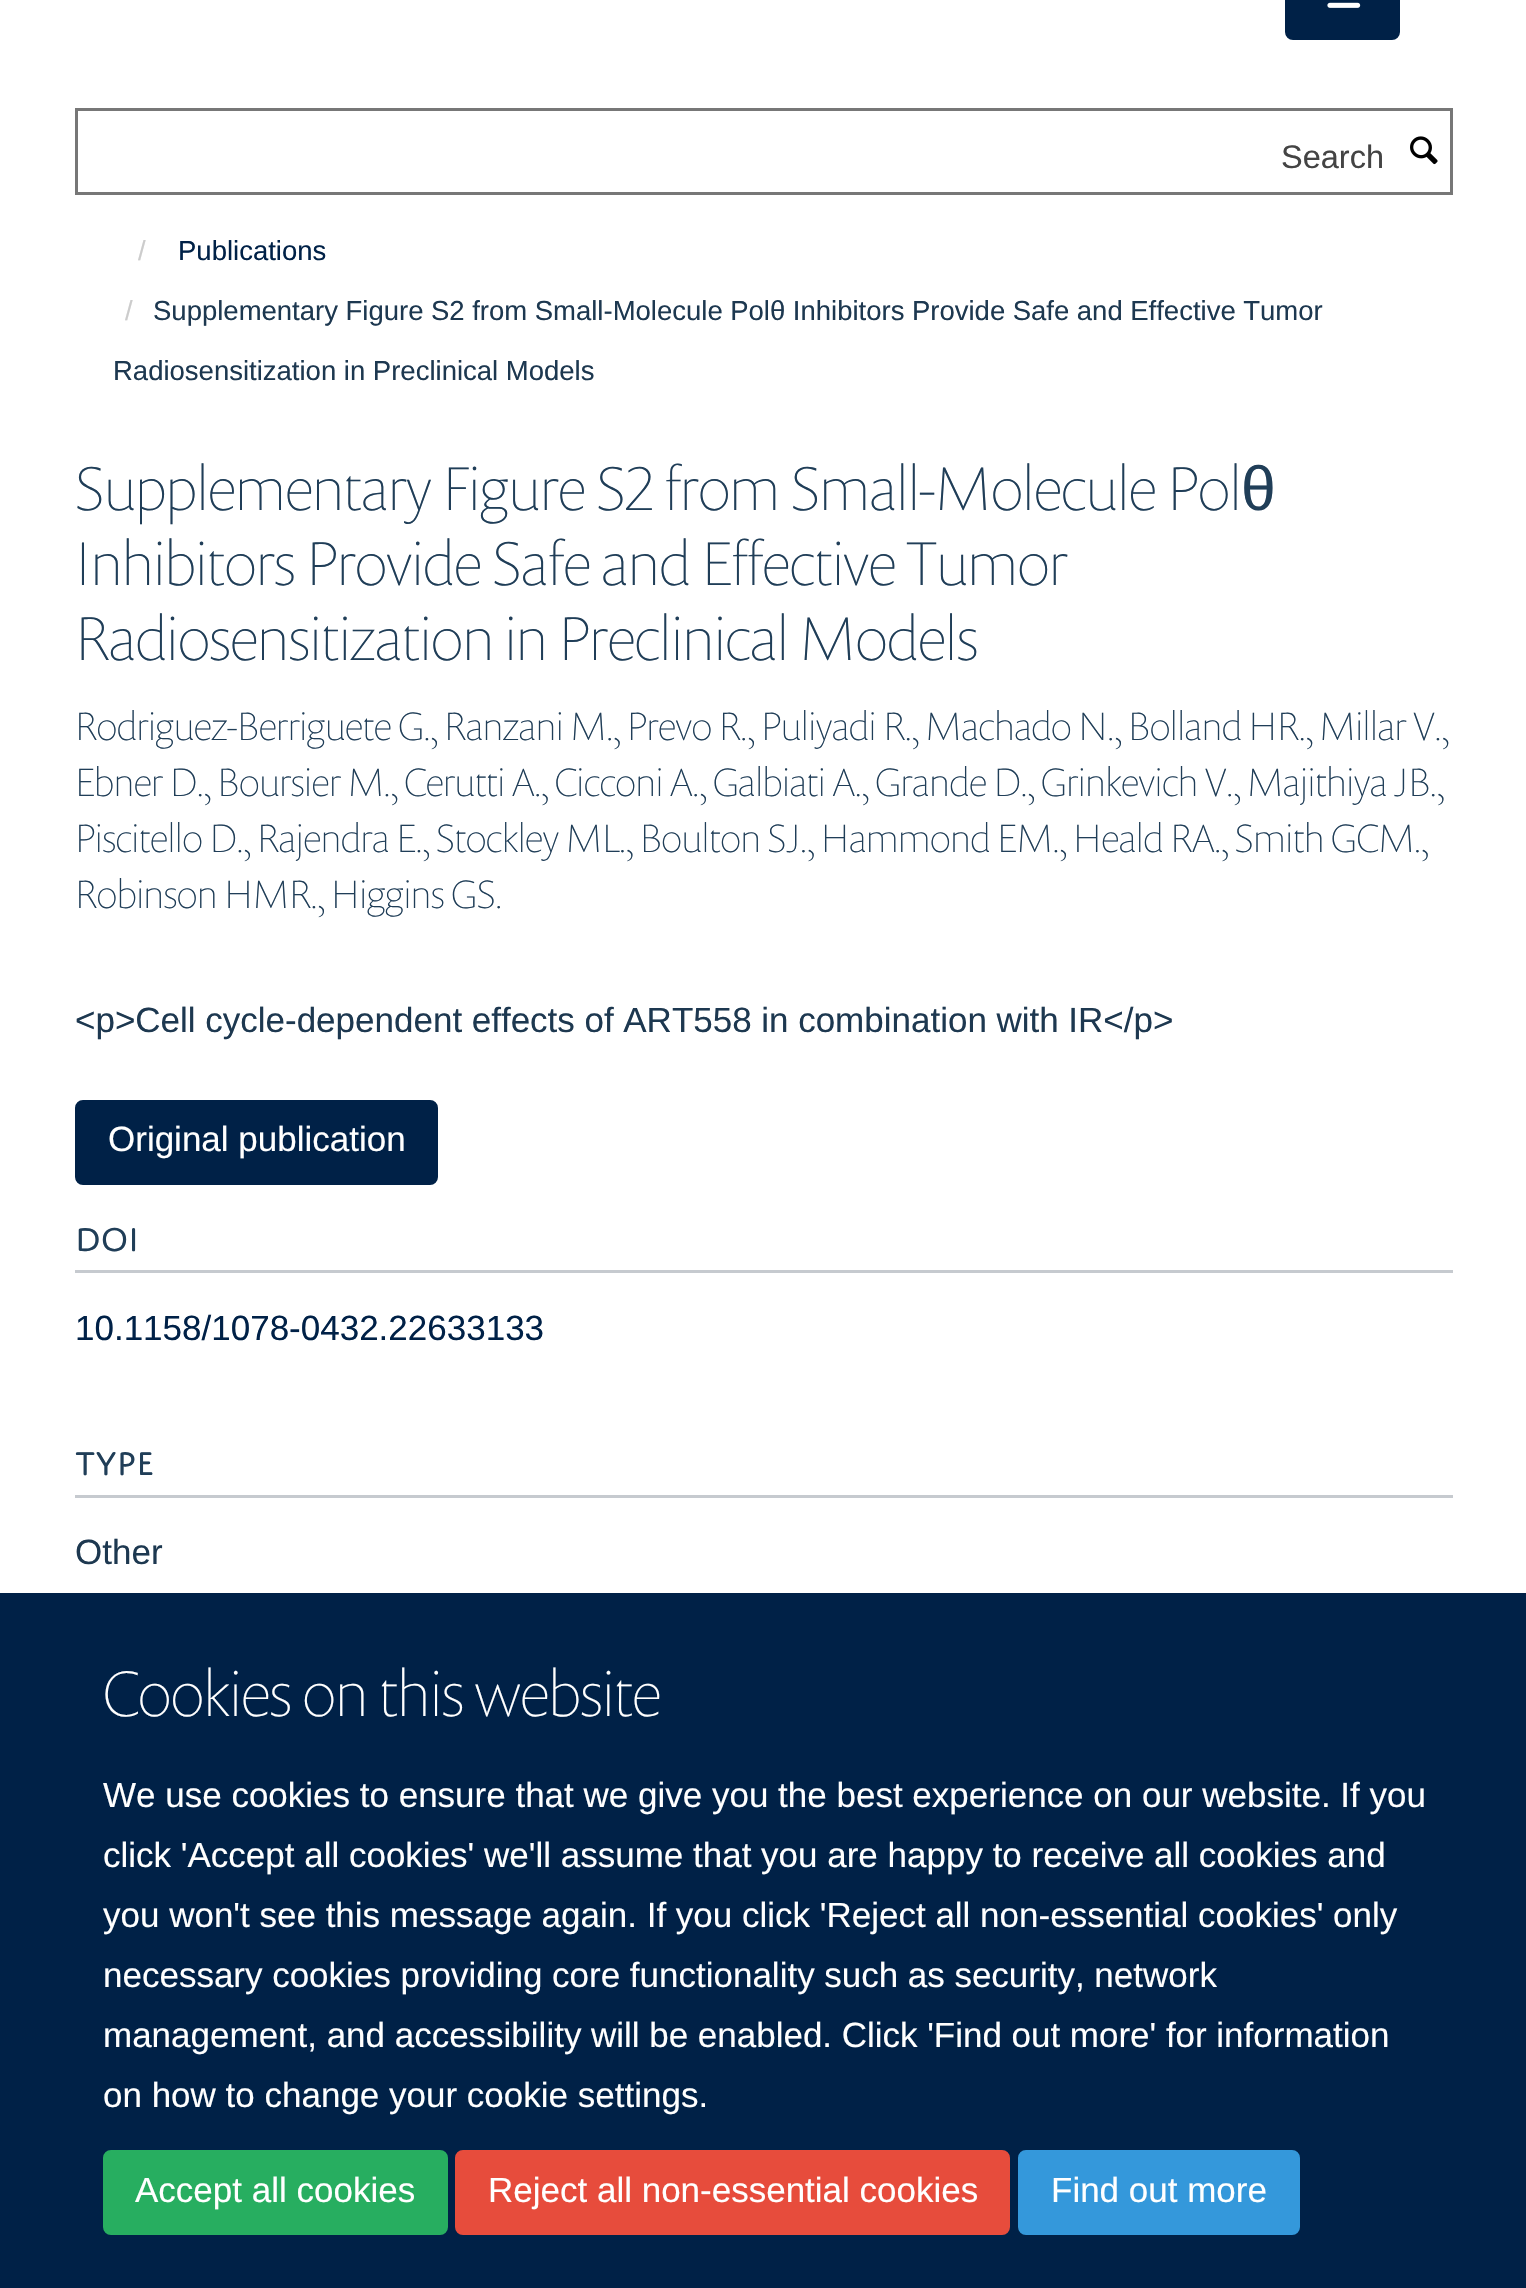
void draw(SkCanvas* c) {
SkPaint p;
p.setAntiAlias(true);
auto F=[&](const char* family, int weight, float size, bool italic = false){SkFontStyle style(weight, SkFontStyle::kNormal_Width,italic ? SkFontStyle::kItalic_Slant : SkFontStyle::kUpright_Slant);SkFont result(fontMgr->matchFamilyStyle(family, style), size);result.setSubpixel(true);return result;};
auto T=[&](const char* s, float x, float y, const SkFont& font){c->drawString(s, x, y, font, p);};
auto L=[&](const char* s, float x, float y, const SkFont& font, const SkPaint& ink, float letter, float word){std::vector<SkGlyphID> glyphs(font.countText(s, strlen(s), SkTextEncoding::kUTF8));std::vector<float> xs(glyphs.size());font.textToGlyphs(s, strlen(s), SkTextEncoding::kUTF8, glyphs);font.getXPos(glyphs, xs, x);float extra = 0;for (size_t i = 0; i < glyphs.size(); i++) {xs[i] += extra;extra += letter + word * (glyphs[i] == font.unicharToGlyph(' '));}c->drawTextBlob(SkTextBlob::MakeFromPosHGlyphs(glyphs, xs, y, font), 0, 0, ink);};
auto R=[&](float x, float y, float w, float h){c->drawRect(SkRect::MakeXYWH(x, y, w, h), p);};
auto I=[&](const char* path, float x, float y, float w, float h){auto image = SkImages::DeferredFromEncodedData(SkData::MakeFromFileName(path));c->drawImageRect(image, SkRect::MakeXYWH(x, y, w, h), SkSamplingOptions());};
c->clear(0xffffffff);
p.setColor(0xff002147);
c->drawRoundRect(SkRect::MakeXYWH(1286.5,-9.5,112,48),6.5,6.5,p);
p.setStroke(true);
p.setStrokeWidth(3);
c->drawRoundRect(SkRect::MakeXYWH(1286.5,-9.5,112,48),6.5,6.5,p);
I("1.png",1327,2,34,6);
p.setColor(0xff777777);
c->drawRect(SkRect::MakeXYWH(76.5,109.5,1375,84),p);
auto f1 = F("Liberation Sans",400,32.5);
p.setStroke(false);
p.setColor(0xff444444);
T("Search",1281,168,f1);
I("2.png",1410,136,28,29);
auto f2 = F("Liberation Sans",400,27.5);
p.setColor(0xffcccccc);
T("/",138,260,f2);
p.setColor(0xff002147);
T("Publications",178,260,f2);
p.setColor(0xffcccccc);
T("/",125,320,f2);
p.setColor(0xff1d3850);
L("Supplementary Figure S2 from Small-Molecule Polθ Inhibitors Provide Safe and Effective Tumor",153,320,f2,p,0,-.1);
T("Radiosensitization in Preclinical Models",113,380,f2);
auto f3 = F("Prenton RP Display",100,62.5);
p.setColor(0xff203e58);
T("Supplementary Figure S2 from Small-Molecule Pol",75,510,f3);
auto f4 = F("Liberation Sans",400,62.5);
T("θ",1241,510,f4);
T("Inhibitors Provide Safe and Effective Tumor",75,585,f3);
T("Radiosensitization in Preclinical Models",75,660,f3);
auto f5 = F("Prenton RP Display",100,40);
T("Rodriguez-Berriguete G., Ranzani M., Prevo R., Puliyadi R., Machado N., Bolland HR., Millar V.,",75,740,f5);
T("Ebner D., Boursier M., Cerutti A., Cicconi A., Galbiati A., Grande D., Grinkevich V., Majithiya JB.,",75,796,f5);
T("Piscitello D., Rajendra E., Stockley ML., Boulton SJ., Hammond EM., Heald RA., Smith GCM.,",75,852,f5);
T("Robinson HMR., Higgins GS.",75,908,f5);
auto f6 = F("Liberation Sans",400,35);
p.setColor(0xff1d3850);
L("<p>Cell cycle-dependent effects of ART558 in combination with IR</p>",75,1032,f6,p,0,-.1);
p.setColor(0xff002147);
c->drawRoundRect(SkRect::MakeXYWH(76.5,1101.5,360,82),6.5,6.5,p);
p.setStroke(true);
c->drawRoundRect(SkRect::MakeXYWH(76.5,1101.5,360,82),6.5,6.5,p);
p.setStroke(false);
p.setColor(0xffffffff);
T("Original publication",108,1151,f6);
p.setColor(0xffc6cacf);
R(75,1270,1378,3);
auto f7 = F("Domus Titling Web",400,35);
p.setColor(0xff203e58);
T("DOI",75,1251,f7);
p.setColor(0xff002147);
T("10.1158/1078-0432.22633133",75,1340,f6);
p.setColor(0xffc6cacf);
R(75,1495,1378,3);
p.setColor(0xff203e58);
T("TYPE",75,1475,f7);
p.setColor(0xff1d3850);
T("Other",75,1564,f6);
p.setColor(0xff002147);
R(0,1593,1526,695);
auto f8 = F("Prenton RP Display",100,65);
p.setColor(0xffffffff);
T("Cookies on this website",103,1716,f8);
T("We use cookies to ensure that we give you the best experience on our website. If you",103,1807,f6);
T("click 'Accept all cookies' we'll assume that you are happy to receive all cookies and",103,1867,f6);
T("you won't see this message again. If you click 'Reject all non-essential cookies' only",103,1927,f6);
L("necessary cookies providing core functionality such as security, network",103,1987,f6,p,0,-.1);
L("management, and accessibility will be enabled. Click 'Find out more' for information",103,2047,f6,p,0,-.1);
T("on how to change your cookie settings.",103,2107,f6);
p.setColor(0xff27ae60);
c->drawRoundRect(SkRect::MakeXYWH(104.5,2151.5,342,82),6.5,6.5,p);
p.setStroke(true);
c->drawRoundRect(SkRect::MakeXYWH(104.5,2151.5,342,82),6.5,6.5,p);
p.setStroke(false);
p.setColor(0xffffffff);
T("Accept all cookies",135,2202,f6);
p.setColor(0xffe74c3c);
c->drawRoundRect(SkRect::MakeXYWH(456.5,2151.5,552,82),6.5,6.5,p);
p.setStroke(true);
c->drawRoundRect(SkRect::MakeXYWH(456.5,2151.5,552,82),6.5,6.5,p);
p.setStroke(false);
p.setColor(0xffffffff);
T("Reject all non-essential cookies",488,2202,f6);
p.setColor(0xff3498db);
c->drawRoundRect(SkRect::MakeXYWH(1019.5,2151.5,279,82),6.5,6.5,p);
p.setStroke(true);
c->drawRoundRect(SkRect::MakeXYWH(1019.5,2151.5,279,82),6.5,6.5,p);
p.setStroke(false);
p.setColor(0xffffffff);
T("Find out more",1051,2202,f6);
}
